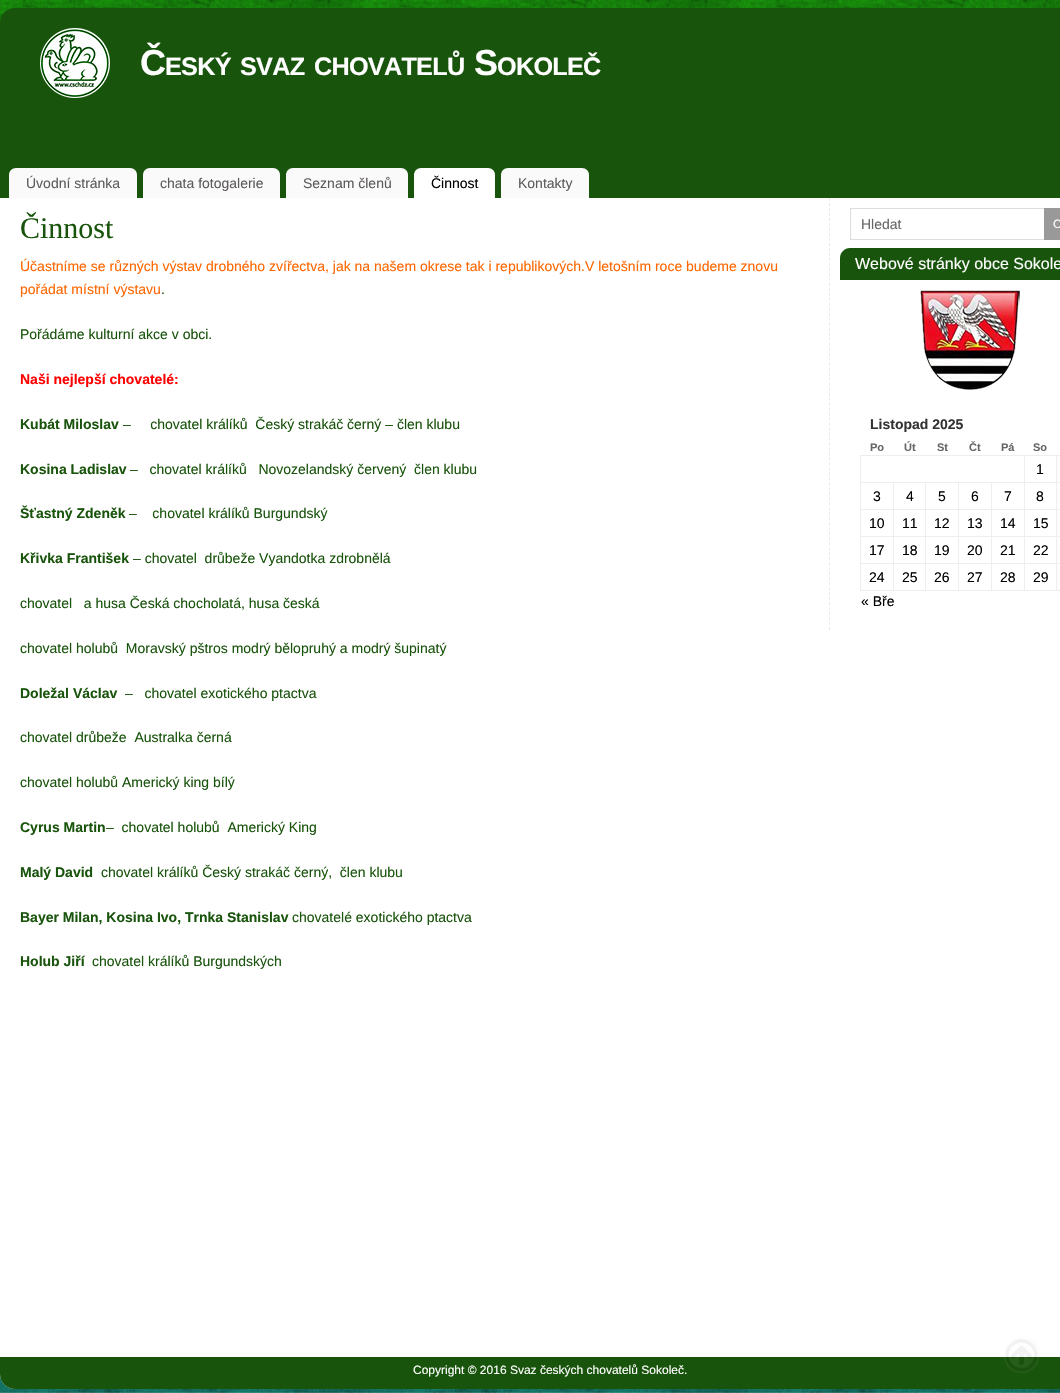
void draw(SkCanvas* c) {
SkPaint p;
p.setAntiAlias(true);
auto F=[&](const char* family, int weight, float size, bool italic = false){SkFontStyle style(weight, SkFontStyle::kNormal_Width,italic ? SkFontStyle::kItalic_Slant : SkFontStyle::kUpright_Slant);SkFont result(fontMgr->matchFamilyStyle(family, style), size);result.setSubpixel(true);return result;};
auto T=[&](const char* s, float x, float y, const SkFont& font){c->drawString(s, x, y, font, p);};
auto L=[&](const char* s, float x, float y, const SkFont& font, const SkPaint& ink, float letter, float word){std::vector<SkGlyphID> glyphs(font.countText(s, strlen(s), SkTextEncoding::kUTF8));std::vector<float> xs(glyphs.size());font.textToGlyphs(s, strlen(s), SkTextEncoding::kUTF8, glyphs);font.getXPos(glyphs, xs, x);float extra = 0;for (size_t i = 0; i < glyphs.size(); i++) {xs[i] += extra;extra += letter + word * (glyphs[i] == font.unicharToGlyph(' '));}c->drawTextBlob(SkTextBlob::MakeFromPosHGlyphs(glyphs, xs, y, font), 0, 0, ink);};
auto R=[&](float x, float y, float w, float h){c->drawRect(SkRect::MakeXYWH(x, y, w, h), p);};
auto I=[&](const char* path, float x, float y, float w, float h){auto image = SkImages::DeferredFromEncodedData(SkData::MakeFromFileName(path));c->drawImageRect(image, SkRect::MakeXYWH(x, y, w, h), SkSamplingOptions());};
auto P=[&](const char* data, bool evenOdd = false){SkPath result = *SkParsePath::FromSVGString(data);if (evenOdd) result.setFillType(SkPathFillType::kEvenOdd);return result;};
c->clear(0xffffffff);
I("1.png",0,0,1060,1393);
p.setColor(0xff19540c);
c->drawPath(P("M15 8h1045c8.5 0 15 6.5 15 15v175h-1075v-175c0-8.5 6.5-15 15-15z"),p);
I("2.png",40,28,70,70);
auto f1 = F("Liberation Sans",700,36);
p.setColor(0xffffffff);
L("Č",140,75,f1,p,-.75,0);
auto f2 = F("Liberation Sans",700,25.25);
L("ESKÝ",165,75,f2,p,-.75,0);
L("SVAZ",240,75,f2,p,-.75,0);
L("CHOVATELŮ",314,75,f2,p,-.75,0);
L("S",474,75,f1,p,-.75,0);
L("OKOLEČ",497,75,f2,p,-.75,0);
p.setColor(0xfffafafa);
c->drawPath(P("M16 168h114c4 0 7 3 7 7v23h-128v-23c0-4 3-7 7-7z"),p);
auto f3 = F("Liberation Sans",400,14);
p.setColor(0xff5f5b5b);
T("Úvodní stránka",26,188,f3);
p.setColor(0xfffafafa);
c->drawPath(P("M150 168h123c4 0 7 3 7 7v23h-137v-23c0-4 3-7 7-7z"),p);
p.setColor(0xff5f5b5b);
T("chata fotogalerie",160,188,f3);
p.setColor(0xfffafafa);
c->drawPath(P("M293 168h108c4 0 7 3 7 7v23h-122v-23c0-4 3-7 7-7z"),p);
p.setColor(0xff5f5b5b);
T("Seznam členů",303,188,f3);
p.setColor(0xffffffff);
c->drawPath(P("M421 168h67c4 0 7 3 7 7v23h-81v-23c0-4 3-7 7-7z"),p);
p.setColor(0xff000000);
T("Činnost",431,188,f3);
p.setColor(0xfffafafa);
c->drawPath(P("M508 168h74c4 0 7 3 7 7v23h-88v-23c0-4 3-7 7-7z"),p);
p.setColor(0xff5f5b5b);
T("Kontakty",518,188,f3);
p.setColor(0xffffffff);
R(0,198,1060,1149);
auto f4 = F("Liberation Serif",400,30);
p.setColor(0xff19540c);
T("Činnost",20,238,f4);
p.setColor(0xffff6600);
T("Účastníme se různých výstav drobného zvířectva, jak na našem okrese tak i republikových.V letošním roce budeme znovu",20,271,f3);
T("pořádat místní výstavu",20,294,f3);
p.setColor(0xff19540c);
T(".",161,294,f3);
T("Pořádáme kulturní akce v obci.",20,339,f3);
auto f5 = F("Liberation Sans",700,14);
p.setColor(0xffff0000);
T("Naši nejlepší chovatelé:",20,384,f5);
p.setColor(0xff19540c);
T("Kubát Miloslav",20,429,f5);
T("–     chovatel králíků  Český strakáč černý – člen klubu",123,429,f3);
T("Kosina Ladislav",20,474,f5);
T("–   chovatel králíků   Novozelandský červený  člen klubu",130,474,f3);
T("Šťastný Zdeněk",20,518,f5);
T("–    chovatel králíků Burgundský",129,518,f3);
T("Křivka František",20,563,f5);
T("– chovatel  drůbeže Vyandotka zdrobnělá",133,563,f3);
T("chovatel   a husa Česká chocholatá, husa česká",20,608,f3);
T("chovatel holubů  Moravský pštros modrý bělopruhý a modrý šupinatý",20,653,f3);
T("Doležal Václav",20,698,f5);
T("–   chovatel exotického ptactva",125,698,f3);
T("chovatel drůbeže  Australka černá",20,742,f3);
T("chovatel holubů Americký king bílý",20,787,f3);
T("Cyrus Martin",20,832,f5);
T("–  chovatel holubů  Americký King",106,832,f3);
T("Malý David",20,877,f5);
T("chovatel králíků Český strakáč černý,  člen klubu",101,877,f3);
T("Bayer Milan, Kosina Ivo, Trnka Stanislav",20,922,f5);
T("chovatelé exotického ptactva",292,922,f3);
T("Holub Jiří",20,966,f5);
T("chovatel králíků Burgundských",92,966,f3);
p.setStroke(true);
p.setStrokeWidth(1);
p.setColor(0xffeaeaea);
p.setPathEffect(SkDashPathEffect::Make({{3,1.99f}}, 0));
c->drawPath(P("M829.5 198v432"),p);
p.setPathEffect(nullptr);
p.setColor(0xffdddddd);
c->drawRect(SkRect::MakeXYWH(850.5,208.5,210,31),p);
p.setStroke(false);
p.setColor(0xff666666);
T("Hledat",861,229,f3);
p.setColor(0xff999999);
R(1044,208,16,32);
auto f6 = F("Liberation Sans",400,12);
p.setColor(0xffffffff);
T("O",1053,228,f6);
p.setColor(0xff19540c);
c->drawPath(P("M850 248h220v32h-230v-22c0-5.5 4.5-10 10-10z"),p);
auto f7 = F("Liberation Sans",400,16);
p.setColor(0xffffffff);
T("Webové stránky obce Sokole",855,269,f7);
I("3.png",920,290,100,100);
p.setColor(0xff333333);
T("Listopad 2025",870,429,f5);
auto f8 = F("Liberation Sans",700,11);
p.setColor(0xff666666);
T("Po",870,451,f8);
T("Út",904,451,f8);
T("St",937,451,f8);
T("Čt",969,451,f8);
T("Pá",1001,451,f8);
T("So",1033,451,f8);
p.setColor(0xffeeeeee);
R(1056,455,4,1);
R(1056,482,4,1);
R(1056,509,4,1);
R(1056,536,4,1);
R(1056,563,4,1);
R(1056,590,4,1);
R(1056,563,1,28);
R(1024,563,33,1);
R(1056,536,1,28);
R(1024,536,33,1);
R(1056,509,1,28);
R(1024,509,33,1);
R(1056,482,1,28);
R(1024,482,33,1);
R(1056,455,1,28);
R(1024,455,33,1);
R(1024,590,33,1);
R(1024,563,1,28);
R(991,563,34,1);
R(1024,536,1,28);
R(991,536,34,1);
R(1024,509,1,28);
R(991,509,34,1);
R(1024,482,1,28);
R(991,482,34,1);
R(1024,455,1,28);
R(860,455,165,1);
R(991,590,34,1);
R(991,563,1,28);
R(958,563,34,1);
R(991,536,1,28);
R(958,536,34,1);
R(991,509,1,28);
R(958,509,34,1);
R(991,482,1,28);
R(958,482,34,1);
R(958,590,34,1);
R(958,563,1,28);
R(925,563,34,1);
R(958,536,1,28);
R(925,536,34,1);
R(958,509,1,28);
R(925,509,34,1);
R(958,482,1,28);
R(925,482,34,1);
R(925,590,34,1);
R(925,563,1,28);
R(893,563,33,1);
R(925,536,1,28);
R(893,536,33,1);
R(925,509,1,28);
R(893,509,33,1);
R(925,482,1,28);
R(893,482,33,1);
R(893,590,33,1);
R(893,563,1,28);
R(860,563,34,1);
R(893,536,1,28);
R(860,536,34,1);
R(893,509,1,28);
R(860,509,34,1);
R(893,482,1,28);
R(860,482,34,1);
R(860,590,34,1);
R(860,563,1,28);
R(860,536,1,28);
R(860,509,1,28);
R(860,482,1,28);
R(860,455,1,28);
p.setColor(0xff000000);
T("1",1036,474,f3);
T("3",873,501,f3);
T("4",906,501,f3);
T("5",938,501,f3);
T("6",971,501,f3);
T("7",1004,501,f3);
T("8",1036,501,f3);
T("10",869,528,f3);
T("11",902,528,f3);
T("12",934,528,f3);
T("13",967,528,f3);
T("14",1000,528,f3);
T("15",1033,528,f3);
T("17",869,555,f3);
T("18",902,555,f3);
T("19",934,555,f3);
T("20",967,555,f3);
T("21",1000,555,f3);
T("22",1033,555,f3);
T("24",869,582,f3);
T("25",902,582,f3);
T("26",934,582,f3);
T("27",967,582,f3);
T("28",1000,582,f3);
T("29",1033,582,f3);
T("« Bře",861,606,f3);
p.setColor(0xffffffff);
c->drawPath(P("M0 1347h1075v27c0 8.5-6.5 15-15 15h-1045c-8.5 0-15-6.5-15-15z"),p);
p.setColor(0xff19540c);
c->drawPath(P("M0 1357h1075v17c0 8.5-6.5 15-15 15h-1045c-8.5 0-15-6.5-15-15z"),p);
p.setColor(0xffffffff);
T("Copyright © 2016 Svaz českých chovatelů Sokoleč.",413,1374,f6);
I("4.png",1004,1337,36,36);
}
